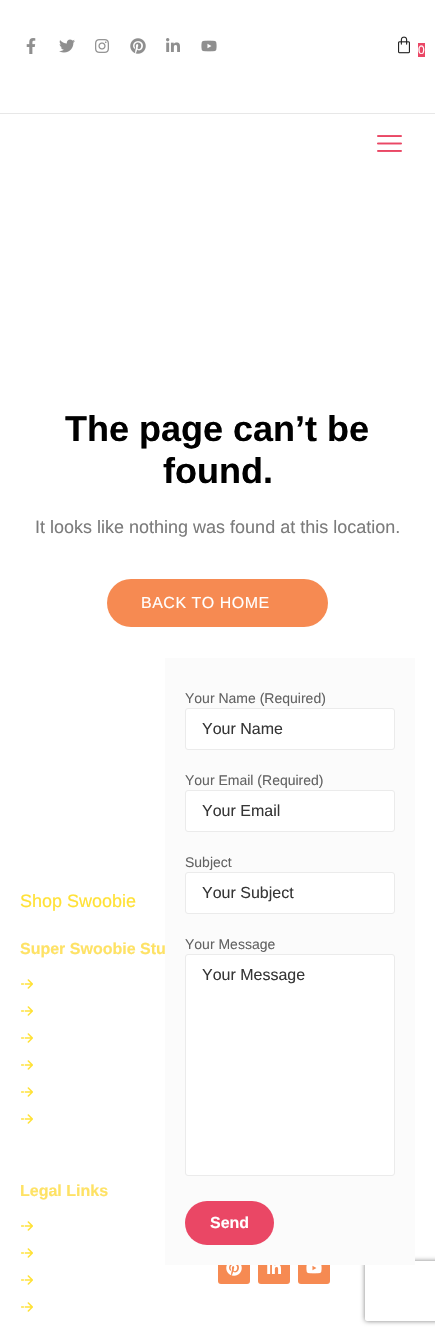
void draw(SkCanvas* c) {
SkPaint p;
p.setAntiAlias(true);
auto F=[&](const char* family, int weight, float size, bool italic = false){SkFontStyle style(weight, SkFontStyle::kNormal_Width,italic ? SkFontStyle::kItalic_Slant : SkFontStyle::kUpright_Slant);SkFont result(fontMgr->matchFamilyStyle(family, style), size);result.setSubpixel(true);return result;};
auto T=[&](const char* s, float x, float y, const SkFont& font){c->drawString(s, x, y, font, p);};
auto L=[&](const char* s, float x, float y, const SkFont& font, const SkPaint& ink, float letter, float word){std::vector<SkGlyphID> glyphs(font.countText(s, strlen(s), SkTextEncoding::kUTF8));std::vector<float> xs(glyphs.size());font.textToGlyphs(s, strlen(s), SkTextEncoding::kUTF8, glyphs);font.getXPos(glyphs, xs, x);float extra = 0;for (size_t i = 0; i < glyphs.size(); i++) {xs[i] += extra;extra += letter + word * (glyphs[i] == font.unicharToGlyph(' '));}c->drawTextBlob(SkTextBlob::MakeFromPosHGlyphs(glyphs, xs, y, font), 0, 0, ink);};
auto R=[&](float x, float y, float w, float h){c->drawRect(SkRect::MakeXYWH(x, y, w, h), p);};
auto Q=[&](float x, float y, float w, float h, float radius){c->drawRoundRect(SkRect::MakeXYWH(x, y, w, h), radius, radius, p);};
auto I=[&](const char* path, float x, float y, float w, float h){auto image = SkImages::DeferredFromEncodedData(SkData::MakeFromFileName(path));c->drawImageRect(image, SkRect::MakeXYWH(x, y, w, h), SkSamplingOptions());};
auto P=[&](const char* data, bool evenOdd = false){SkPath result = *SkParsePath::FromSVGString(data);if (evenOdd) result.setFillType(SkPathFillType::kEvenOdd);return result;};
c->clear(0xffffffff);
p.setColor(0xffe7e7e7);
R(0,113,435,1);
I("1.png",26,38,10,16);
I("2.png",59,39,16,14);
I("3.png",95,39,14,14);
I("4.png",130,38,16,16);
I("5.png",166,38,14,14);
I("6.png",201,40,16,12);
I("7.png",398,36,12,18);
p.setColor(0xffea4765);
R(418,43,7,14);
auto f1 = F("Liberation Sans",400,12);
p.setColor(0xffffffff);
T("0",418,54,f1);
I("8.png",377,135,25,17);
auto f2 = F("Liberation Sans",700,36);
p.setColor(0xff000000);
T("The page can’t be",65,441,f2);
T("found.",163,483,f2);
auto f3 = F("Liberation Sans",400,18);
p.setColor(0xff7b7b7b);
T("It looks like nothing was found at this location.",35,533,f3);
p.setColor(0xfff68a52);
Q(107,579,221,48,24);
auto f4 = F("Liberation Sans",400,16);
p.setColor(0xffffffff);
L("BACK TO HOME",141,608,f4,p,.5,0);
p.setColor(0xffffe135);
T("Shop Swoobie",20,907,f3);
auto f5 = F("Liberation Sans",700,16);
p.setColor(0xfffee265);
T("Super Swoobie Stu",20,954,f5);
I("9.png",21,979,12,10);
I("9.png",21,1006,12,10);
I("9.png",21,1033,12,10);
I("9.png",21,1060,12,10);
I("9.png",21,1087,12,10);
I("9.png",21,1114,12,10);
T("Legal Links",20,1196,f5);
I("9.png",21,1221,12,10);
I("9.png",21,1248,12,10);
I("9.png",21,1275,12,10);
I("9.png",21,1302,12,10);
p.setColor(0xfff68a52);
Q(218,1252,32,32,3);
I("10.png",226,1265,16,11);
Q(258,1252,32,32,3);
I("11.png",267,1265,14,9);
Q(298,1252,32,32,3);
I("12.png",306,1265,16,9);
c->save();
c->clipPath(P("M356 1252h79v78h-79zm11 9h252c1 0 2 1 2 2v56c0 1-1 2-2 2h-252c-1 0-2-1-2-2v-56c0-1 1-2 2-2z",true),true);
p.setColor(0xff808080);
p.setMaskFilter(SkMaskFilter::MakeBlur(kNormal_SkBlurStyle, 2.5));
c->drawRoundRect(SkRect::MakeXYWH(365,1261,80,60),2,2,p);
p.setMaskFilter(nullptr);
c->restore();
p.setColor(0xfffbfbfb);
R(165,658,250,607);
auto f6 = F("Liberation Sans",400,14);
p.setColor(0xff626262);
T("Your Name (Required)",185,703,f6);
p.setColor(0xffffffff);
c->drawRoundRect(SkRect::MakeXYWH(185.5,708.5,209,41),2.5,2.5,p);
p.setStroke(true);
p.setStrokeWidth(1);
p.setColor(0xffebebeb);
c->drawRoundRect(SkRect::MakeXYWH(185.5,708.5,209,41),2.5,2.5,p);
p.setStroke(false);
p.setColor(0xff363636);
T("Your Name",202,734,f4);
p.setColor(0xff626262);
T("Your Email (Required)",185,785,f6);
p.setColor(0xffffffff);
c->drawRoundRect(SkRect::MakeXYWH(185.5,790.5,209,41),2.5,2.5,p);
p.setStroke(true);
p.setColor(0xffebebeb);
c->drawRoundRect(SkRect::MakeXYWH(185.5,790.5,209,41),2.5,2.5,p);
p.setStroke(false);
p.setColor(0xff363636);
T("Your Email",202,816,f4);
p.setColor(0xff626262);
T("Subject",185,867,f6);
p.setColor(0xffffffff);
c->drawRoundRect(SkRect::MakeXYWH(185.5,872.5,209,41),2.5,2.5,p);
p.setStroke(true);
p.setColor(0xffebebeb);
c->drawRoundRect(SkRect::MakeXYWH(185.5,872.5,209,41),2.5,2.5,p);
p.setStroke(false);
p.setColor(0xff363636);
T("Your Subject",202,898,f4);
p.setColor(0xff626262);
T("Your Message",185,949,f6);
p.setColor(0xffffffff);
c->drawRoundRect(SkRect::MakeXYWH(185.5,954.5,209,221),2.5,2.5,p);
p.setStroke(true);
p.setColor(0xffebebeb);
c->drawRoundRect(SkRect::MakeXYWH(185.5,954.5,209,221),2.5,2.5,p);
p.setStroke(false);
p.setColor(0xff363636);
T("Your Message",202,980,f4);
p.setColor(0xffea4765);
Q(185,1201,89,44,22);
p.setColor(0xffffffff);
T("Send",210,1228,f5);
}
